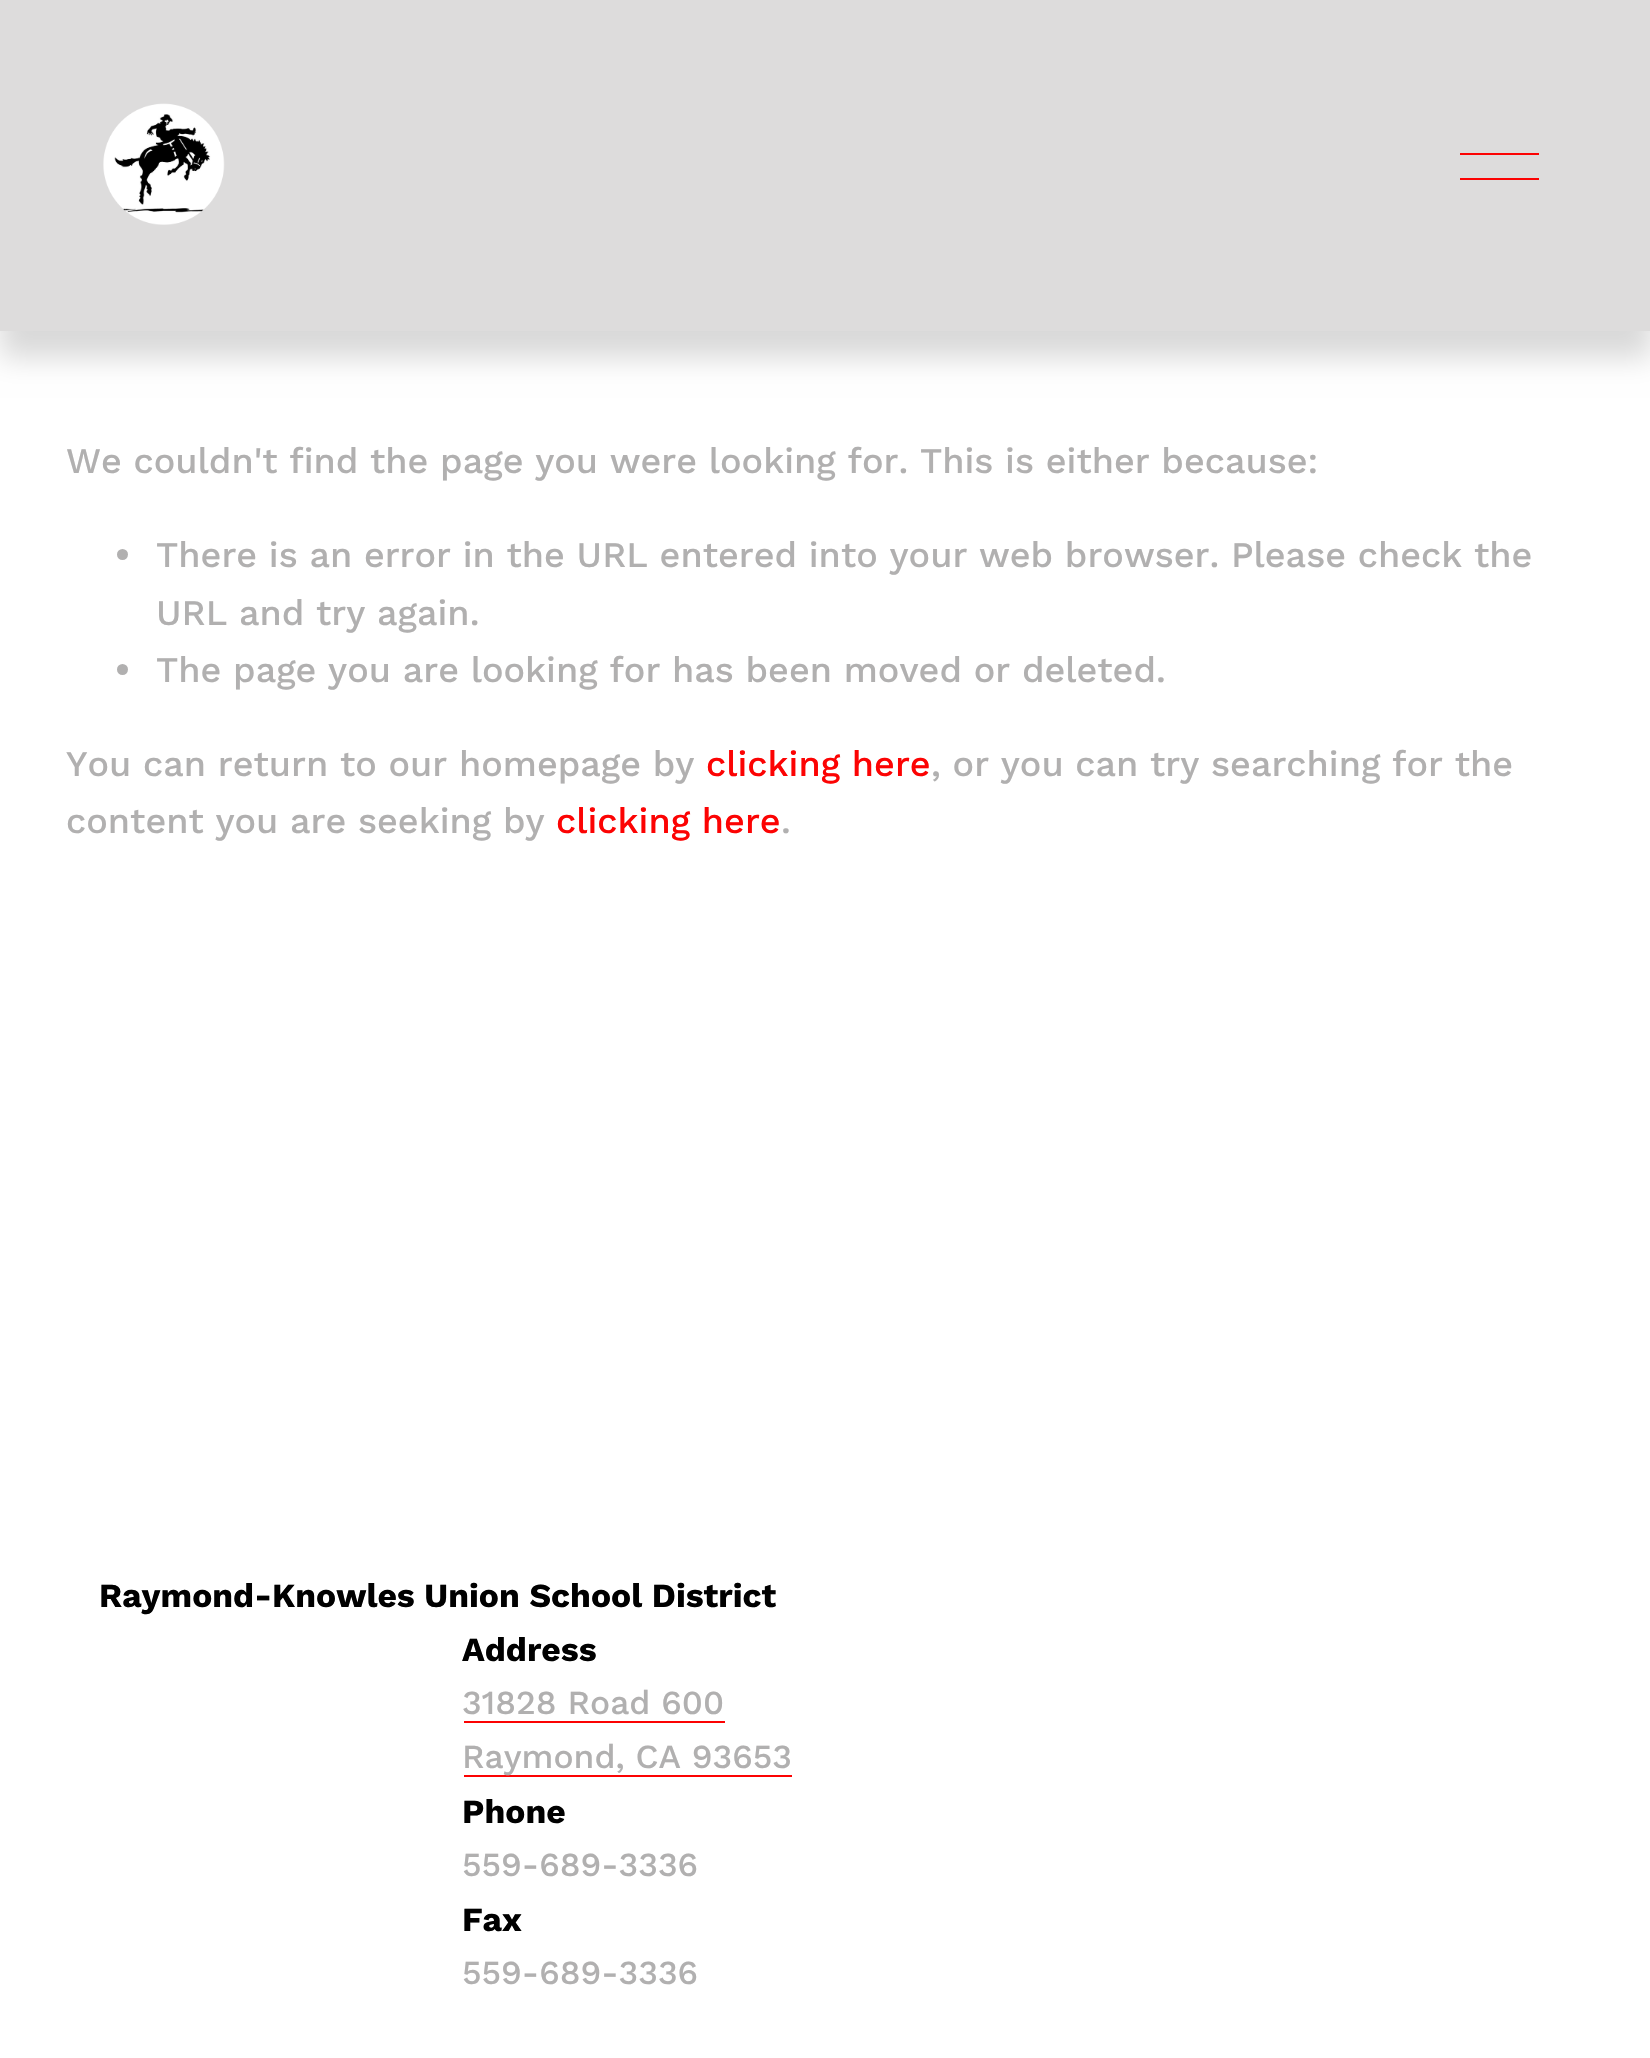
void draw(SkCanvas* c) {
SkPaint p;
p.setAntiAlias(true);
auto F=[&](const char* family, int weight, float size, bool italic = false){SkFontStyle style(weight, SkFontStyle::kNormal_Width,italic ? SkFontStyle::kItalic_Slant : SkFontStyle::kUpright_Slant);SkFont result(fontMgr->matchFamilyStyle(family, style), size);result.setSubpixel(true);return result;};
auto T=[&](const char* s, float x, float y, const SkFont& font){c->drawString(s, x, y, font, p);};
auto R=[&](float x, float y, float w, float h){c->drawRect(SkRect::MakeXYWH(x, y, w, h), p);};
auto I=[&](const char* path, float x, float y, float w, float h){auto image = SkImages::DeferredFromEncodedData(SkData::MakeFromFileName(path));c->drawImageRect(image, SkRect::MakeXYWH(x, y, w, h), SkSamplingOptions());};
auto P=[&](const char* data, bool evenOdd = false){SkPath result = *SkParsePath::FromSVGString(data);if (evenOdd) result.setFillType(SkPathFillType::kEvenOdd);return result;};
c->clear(0xffffffff);
c->save();
c->clipPath(P("M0 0h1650v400h-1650zm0 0h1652v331h-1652z",true),true);
p.setColor(0xffd9d9d9);
p.setMaskFilter(SkMaskFilter::MakeBlur(kNormal_SkBlurStyle, 13.5));
c->drawRect(SkRect::MakeXYWH(0,27,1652,331),p);
p.setMaskFilter(nullptr);
c->restore();
p.setColor(0x70b1b0b0);
R(0,0,1650,331);
I("1.png",103,103,122,122);
p.setColor(0xfffc0303);
R(1460,153,79,2);
R(1460,178,79,2);
auto f1 = F("Work Sans",500,36);
p.setColor(0xffb1b0b0);
T("We couldn't find the page you were looking for. This is either because:",66,473,f1);
c->drawCircle(122.5,554.5,5.5,p);
T("There is an error in the URL entered into your web browser. Please check the",156,567,f1);
T("URL and try again.",156,625,f1);
c->drawCircle(122.5,669.5,5.5,p);
T("The page you are looking for has been moved or deleted.",156,682,f1);
T("You can return to our homepage by",66,776,f1);
p.setColor(0xfffc0303);
T("clicking here",706,776,f1);
p.setColor(0xffb1b0b0);
T(", or you can try searching for the",931,776,f1);
T("content you are seeking by",66,833,f1);
p.setColor(0xfffc0303);
T("clicking here",556,833,f1);
p.setColor(0xffb1b0b0);
T(".",781,833,f1);
auto f2 = F("Work Sans",700,33.6);
p.setColor(0xff000000);
T("Raymond-Knowles Union School District",99,1607,f2);
T("Address",462,1661,f2);
auto f3 = F("Work Sans",500,33.6);
p.setColor(0xffb1b0b0);
T("31828 Road 600",462,1714,f3);
p.setColor(0xfffc0303);
R(464,1721,261,2);
R(464,1775,328,2);
p.setColor(0xffb1b0b0);
T("Raymond, CA 93653",462,1768,f3);
p.setColor(0xff000000);
T("Phone",462,1823,f2);
p.setColor(0xffb1b0b0);
T("559-689-3336",462,1876,f3);
p.setColor(0xff000000);
T("Fax",462,1931,f2);
p.setColor(0xffb1b0b0);
T("559-689-3336",462,1984,f3);
}
